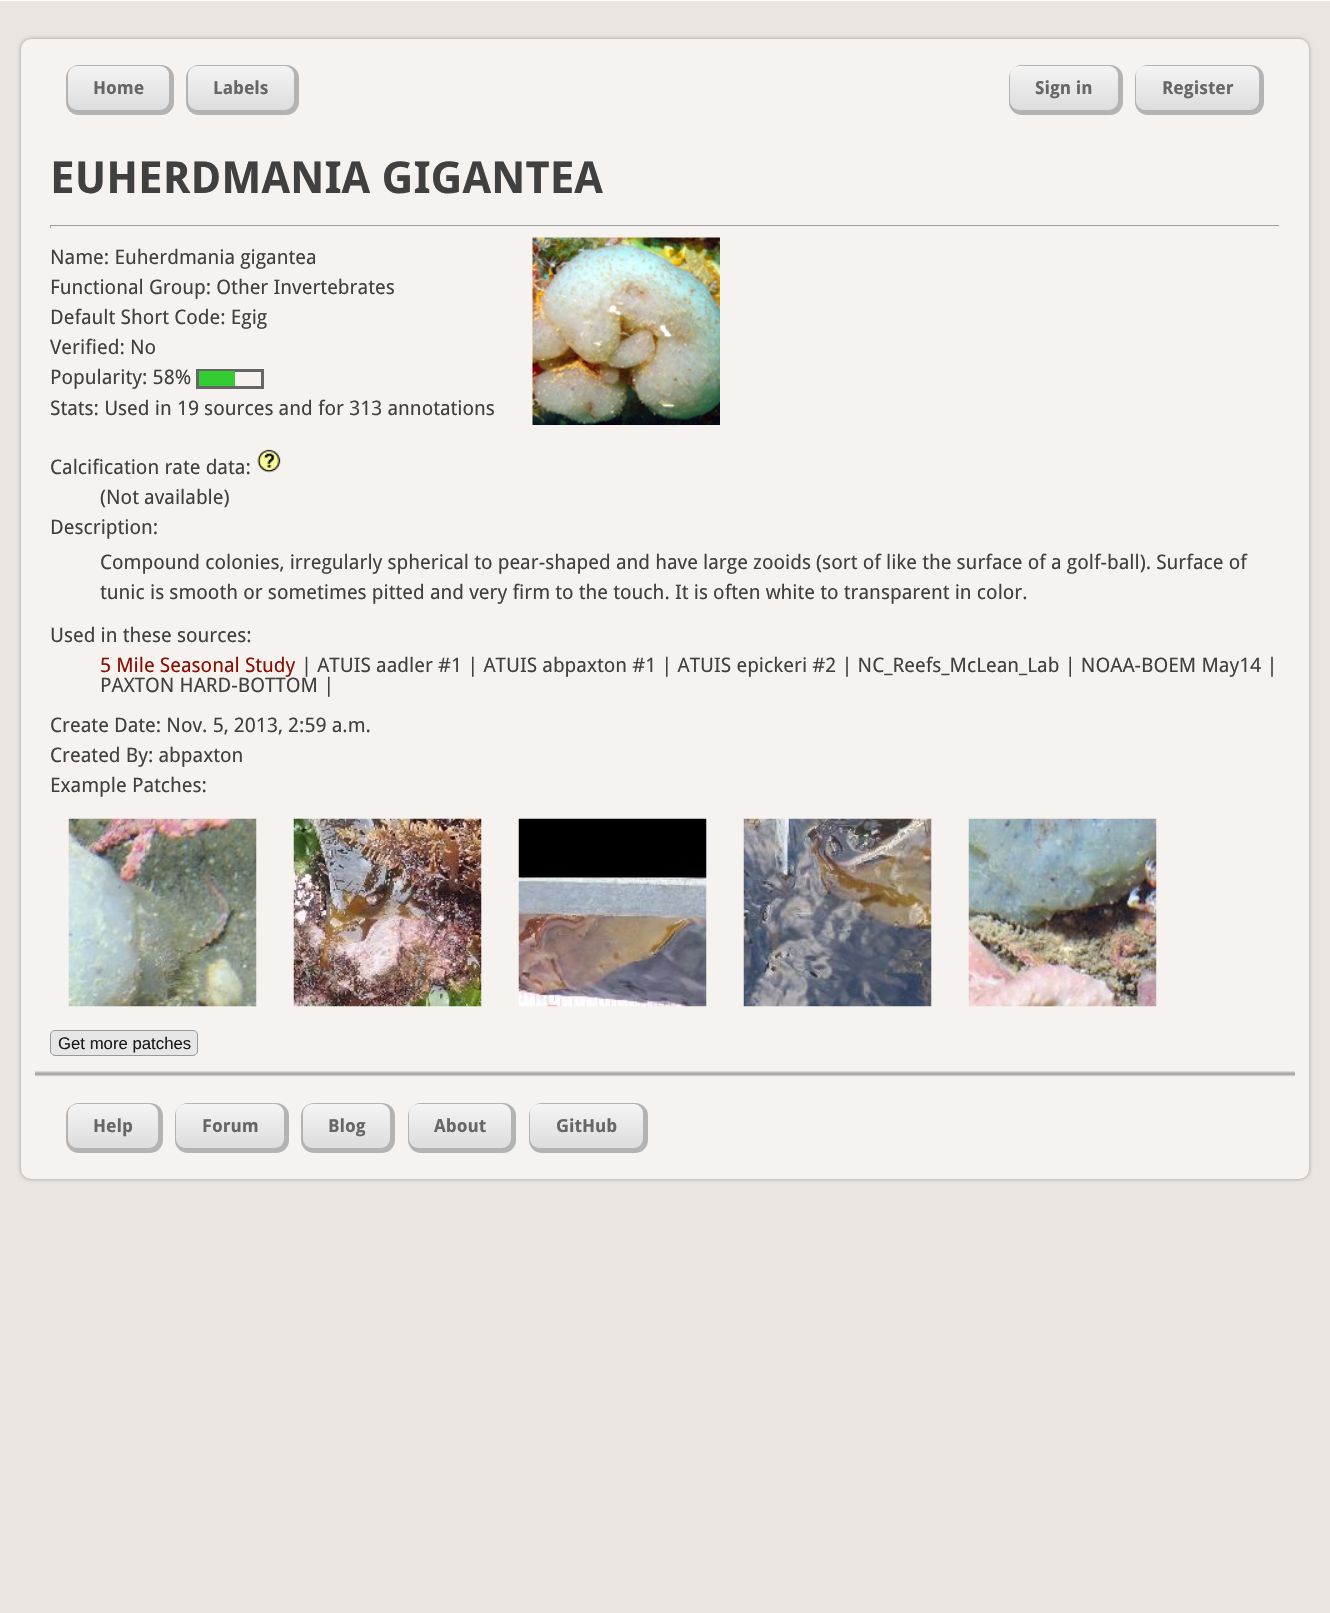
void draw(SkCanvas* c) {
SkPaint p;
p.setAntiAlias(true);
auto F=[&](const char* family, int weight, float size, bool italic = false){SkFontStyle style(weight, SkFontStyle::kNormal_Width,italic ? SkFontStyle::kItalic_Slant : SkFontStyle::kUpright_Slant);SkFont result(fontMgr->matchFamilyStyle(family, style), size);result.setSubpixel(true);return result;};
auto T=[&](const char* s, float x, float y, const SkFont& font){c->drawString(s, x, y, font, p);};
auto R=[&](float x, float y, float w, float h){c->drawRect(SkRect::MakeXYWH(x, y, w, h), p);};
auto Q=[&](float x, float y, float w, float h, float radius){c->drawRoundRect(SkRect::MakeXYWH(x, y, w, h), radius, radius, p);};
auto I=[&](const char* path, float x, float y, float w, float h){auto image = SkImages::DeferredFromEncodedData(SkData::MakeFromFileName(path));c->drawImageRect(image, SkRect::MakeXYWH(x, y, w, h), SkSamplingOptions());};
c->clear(0xffeae5e1);
p.setColor(0xffffffff);
R(0,0,1330,1);
p.setColor(0xff999999);
p.setMaskFilter(SkMaskFilter::MakeBlur(kNormal_SkBlurStyle, 2));
c->drawRoundRect(SkRect::MakeXYWH(21,39,1288,1140),10,10,p);
p.setMaskFilter(nullptr);
p.setColor(0xfff5f2f0);
Q(21,39,1288,1140,10);
p.setColor(0xffb3b3b3);
Q(66,65,108,50,13);
{
const SkColor colors[] = {0xfff4f4f4,0xffdddddd};
const float stops[] = {0,1};
const SkPoint ends[] = {{118,66}, {118,110}};
p.setShader(SkGradientShader::MakeLinear(ends, colors, stops, 2, SkTileMode::kClamp));
p.setAlpha(255);
}
Q(68,66,101,44,9);
auto f1 = F("Droid Sans",700,18);
p.setShader(nullptr);
p.setColor(0xff666666);
T("Home",93,94,f1);
p.setColor(0xffb3b3b3);
Q(186,65,113,50,13);
{
const SkColor colors[] = {0xfff4f4f4,0xffdddddd};
const float stops[] = {0,1};
const SkPoint ends[] = {{241,66}, {241,110}};
p.setShader(SkGradientShader::MakeLinear(ends, colors, stops, 2, SkTileMode::kClamp));
p.setAlpha(255);
}
Q(188,66,106,44,9);
p.setShader(nullptr);
p.setColor(0xff666666);
T("Labels",213,94,f1);
p.setColor(0xffb3b3b3);
Q(1009,65,114,50,13);
{
const SkColor colors[] = {0xd9ffffff,0x8cffffff};
const float stops[] = {0,1};
const SkPoint ends[] = {{1064,66}, {1064,110}};
p.setShader(SkGradientShader::MakeLinear(ends, colors, stops, 2, SkTileMode::kClamp));
p.setAlpha(255);
}
Q(1010,66,108,44,9);
p.setShader(nullptr);
p.setColor(0xff666666);
T("Sign in",1035,94,f1);
p.setColor(0xffb3b3b3);
Q(1135,65,129,50,13);
{
const SkColor colors[] = {0xd9ffffff,0x8cffffff};
const float stops[] = {0,1};
const SkPoint ends[] = {{1198,66}, {1198,110}};
p.setShader(SkGradientShader::MakeLinear(ends, colors, stops, 2, SkTileMode::kClamp));
p.setAlpha(255);
}
Q(1136,66,123,44,9);
p.setShader(nullptr);
p.setColor(0xff666666);
T("Register",1162,94,f1);
auto f2 = F("Droid Sans",700,44);
p.setColor(0xff404040);
T("EUHERDMANIA GIGANTEA",50,193,f2);
p.setColor(0xff9f9f9f);
R(50,225,1230,1);
p.setColor(0xffeeeeee);
R(1279,225,1,3);
R(50,226,1230,1);
p.setColor(0xff9f9f9f);
R(50,225,1,3);
auto f3 = F("Droid Sans",400,20);
p.setColor(0xff404040);
T("Name: Euherdmania gigantea",50,264,f3);
T("Functional Group: Other Invertebrates",50,294,f3);
T("Default Short Code: Egig",50,324,f3);
T("Verified: No",50,354,f3);
T("Popularity: 58%",50,384,f3);
p.setStroke(true);
p.setStrokeWidth(3);
p.setColor(0xff666666);
c->drawRect(SkRect::MakeXYWH(197.5,370.5,65,17),p);
p.setStroke(false);
p.setColor(0xff33cc33);
R(199,371,36,15);
p.setColor(0xff404040);
T("Stats: Used in 19 sources and for 313 annotations",50,415,f3);
I("1.png",532,237,188,188);
T("Calcification rate data:",50,474,f3);
I("2.png",257,449,24,24);
T("(Not available)",100,504,f3);
T("Description:",50,534,f3);
T("Compound colonies, irregularly spherical to pear-shaped and have large zooids (sort of like the surface of a golf-ball). Surface of",100,569,f3);
T("tunic is smooth or sometimes pitted and very firm to the touch. It is often white to transparent in color.",100,599,f3);
T("Used in these sources:",50,642,f3);
p.setColor(0xff8a0e00);
T("5 Mile Seasonal Study",100,672,f3);
p.setColor(0xff404040);
T("| ATUIS aadler #1 | ATUIS abpaxton #1 | ATUIS epickeri #2 | NC_Reefs_McLean_Lab | NOAA-BOEM May14 |",301,672,f3);
T("PAXTON HARD-BOTTOM |",100,692,f3);
T("Create Date: Nov. 5, 2013, 2:59 a.m.",50,732,f3);
T("Created By: abpaxton",50,762,f3);
T("Example Patches:",50,792,f3);
I("3.png",68,818,189,189);
I("4.png",293,818,189,189);
I("5.png",518,818,189,189);
I("6.png",743,818,189,189);
I("7.png",968,818,189,189);
p.setColor(0xffe6e6e6);
c->drawRoundRect(SkRect::MakeXYWH(50.5,1030.5,147,25),4.5,4.5,p);
p.setStroke(true);
p.setStrokeWidth(1);
p.setColor(0xff999999);
c->drawRoundRect(SkRect::MakeXYWH(50.5,1030.5,147,25),4.5,4.5,p);
auto f4 = F("Liberation Sans",400,16.75);
p.setStroke(false);
p.setColor(0xff1a1a1a);
T("Get more patches",58,1049,f4);
I("8.png",35,1071,1260,6);
p.setColor(0xffb3b3b3);
Q(66,1103,97,50,13);
{
const SkColor colors[] = {0xfff4f4f4,0xffdddddd};
const float stops[] = {0,1};
const SkPoint ends[] = {{113,1104}, {113,1148}};
p.setShader(SkGradientShader::MakeLinear(ends, colors, stops, 2, SkTileMode::kClamp));
p.setAlpha(255);
}
Q(68,1104,90,44,9);
p.setShader(nullptr);
p.setColor(0xff666666);
T("Help",93,1132,f1);
p.setColor(0xffb3b3b3);
Q(175,1103,114,50,13);
{
const SkColor colors[] = {0xd9ffffff,0x8cffffff};
const float stops[] = {0,1};
const SkPoint ends[] = {{230,1104}, {230,1148}};
p.setShader(SkGradientShader::MakeLinear(ends, colors, stops, 2, SkTileMode::kClamp));
p.setAlpha(255);
}
Q(176,1104,108,44,9);
p.setShader(nullptr);
p.setColor(0xff666666);
T("Forum",202,1132,f1);
p.setColor(0xffb3b3b3);
Q(301,1103,94,50,13);
{
const SkColor colors[] = {0xfff4f4f4,0xffdddddd};
const float stops[] = {0,1};
const SkPoint ends[] = {{346,1104}, {346,1148}};
p.setShader(SkGradientShader::MakeLinear(ends, colors, stops, 2, SkTileMode::kClamp));
p.setAlpha(255);
}
Q(303,1104,87,44,9);
p.setShader(nullptr);
p.setColor(0xff666666);
T("Blog",328,1132,f1);
p.setColor(0xffb3b3b3);
Q(408,1103,108,50,13);
{
const SkColor colors[] = {0xd9ffffff,0x8cffffff};
const float stops[] = {0,1};
const SkPoint ends[] = {{460,1104}, {460,1148}};
p.setShader(SkGradientShader::MakeLinear(ends, colors, stops, 2, SkTileMode::kClamp));
p.setAlpha(255);
}
Q(409,1104,102,44,9);
p.setShader(nullptr);
p.setColor(0xff666666);
T("About",434,1132,f1);
p.setColor(0xffb3b3b3);
Q(529,1103,119,50,13);
{
const SkColor colors[] = {0xd9ffffff,0x8cffffff};
const float stops[] = {0,1};
const SkPoint ends[] = {{586,1104}, {586,1148}};
p.setShader(SkGradientShader::MakeLinear(ends, colors, stops, 2, SkTileMode::kClamp));
p.setAlpha(255);
}
Q(530,1104,113,44,9);
p.setShader(nullptr);
p.setColor(0xff666666);
T("GitHub",556,1132,f1);
}
